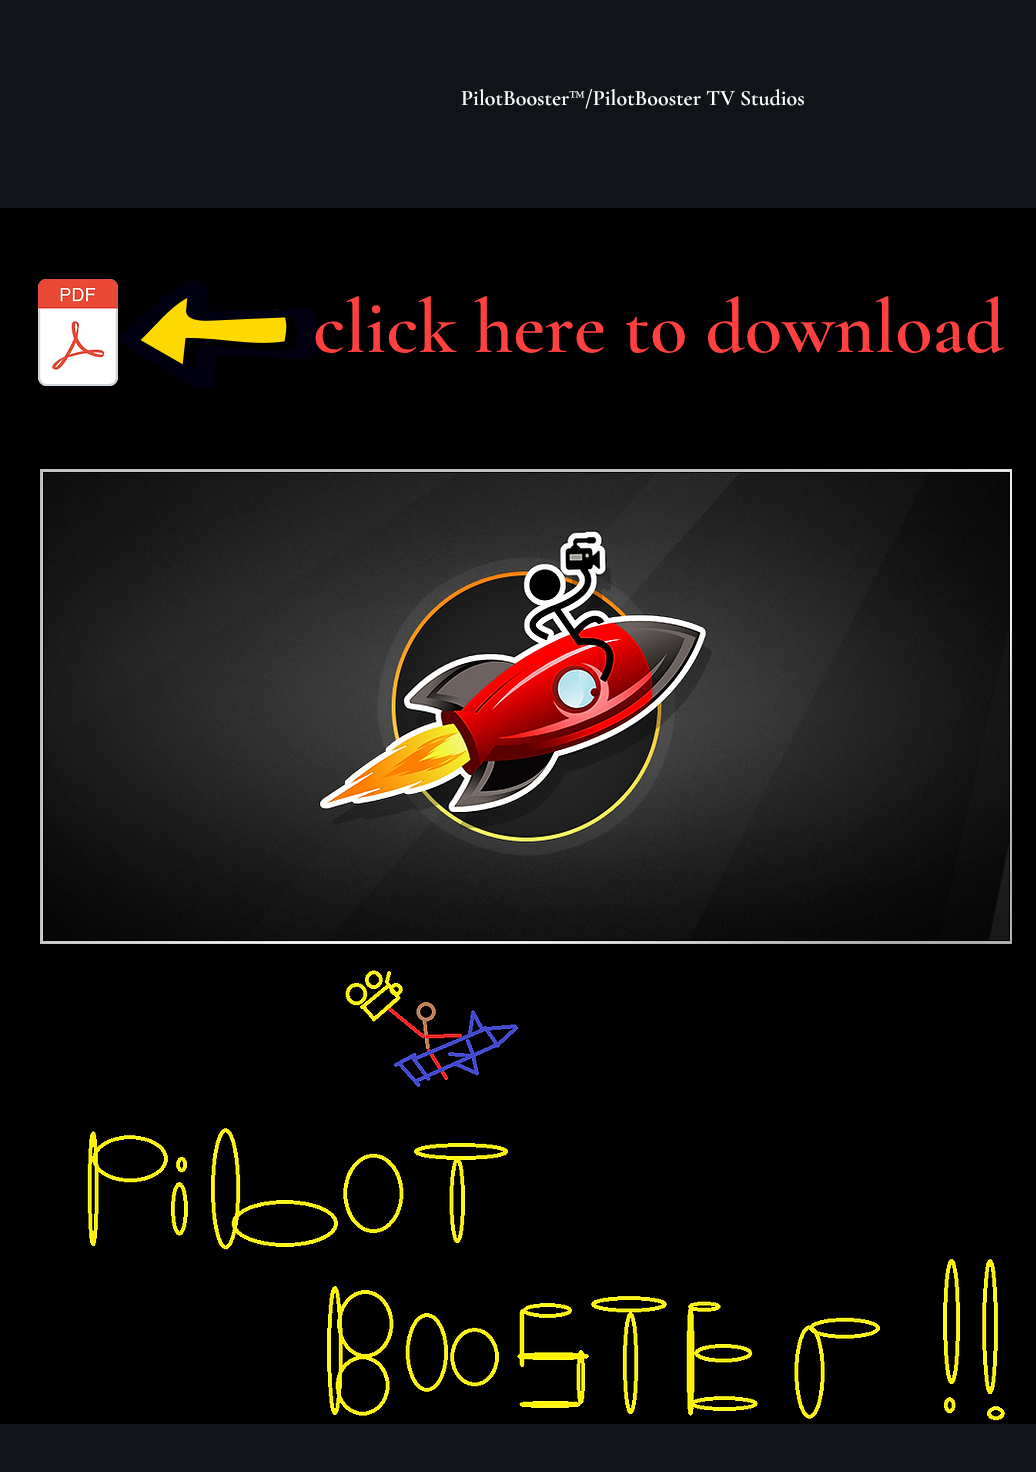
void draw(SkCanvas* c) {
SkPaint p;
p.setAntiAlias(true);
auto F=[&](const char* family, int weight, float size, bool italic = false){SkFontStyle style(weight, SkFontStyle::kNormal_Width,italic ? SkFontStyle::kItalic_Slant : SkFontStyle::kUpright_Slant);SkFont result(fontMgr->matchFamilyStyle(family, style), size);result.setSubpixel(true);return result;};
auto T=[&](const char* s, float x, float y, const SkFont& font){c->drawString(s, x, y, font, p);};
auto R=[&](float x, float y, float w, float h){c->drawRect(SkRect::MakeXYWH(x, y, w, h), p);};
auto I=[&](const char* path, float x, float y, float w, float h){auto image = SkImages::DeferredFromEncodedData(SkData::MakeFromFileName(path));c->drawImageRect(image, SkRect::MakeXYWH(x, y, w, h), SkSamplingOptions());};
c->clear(0xff000000);
p.setColor(0xff101317);
R(0,0,1036,208);
auto f1 = F("Cormorant Garamond",600,22);
p.setColor(0xffffffff);
T("PilotBooster",461,105,f1);
auto f2 = F("Cormorant Garamond",400,22);
T("™",569,105,f2);
T("/PilotBooster TV Studios",585,105,f1);
I("1.png",38,279,80,107);
I("2.png",118,281,200,108);
auto f3 = F("Cormorant Garamond",600,77);
p.setColor(0xffff4040);
T("click here to download",313,352,f3);
I("3.png",40,469,972,475);
I("4.png",86,970,921,451);
p.setColor(0xff101317);
R(0,1424,1036,48);
}
